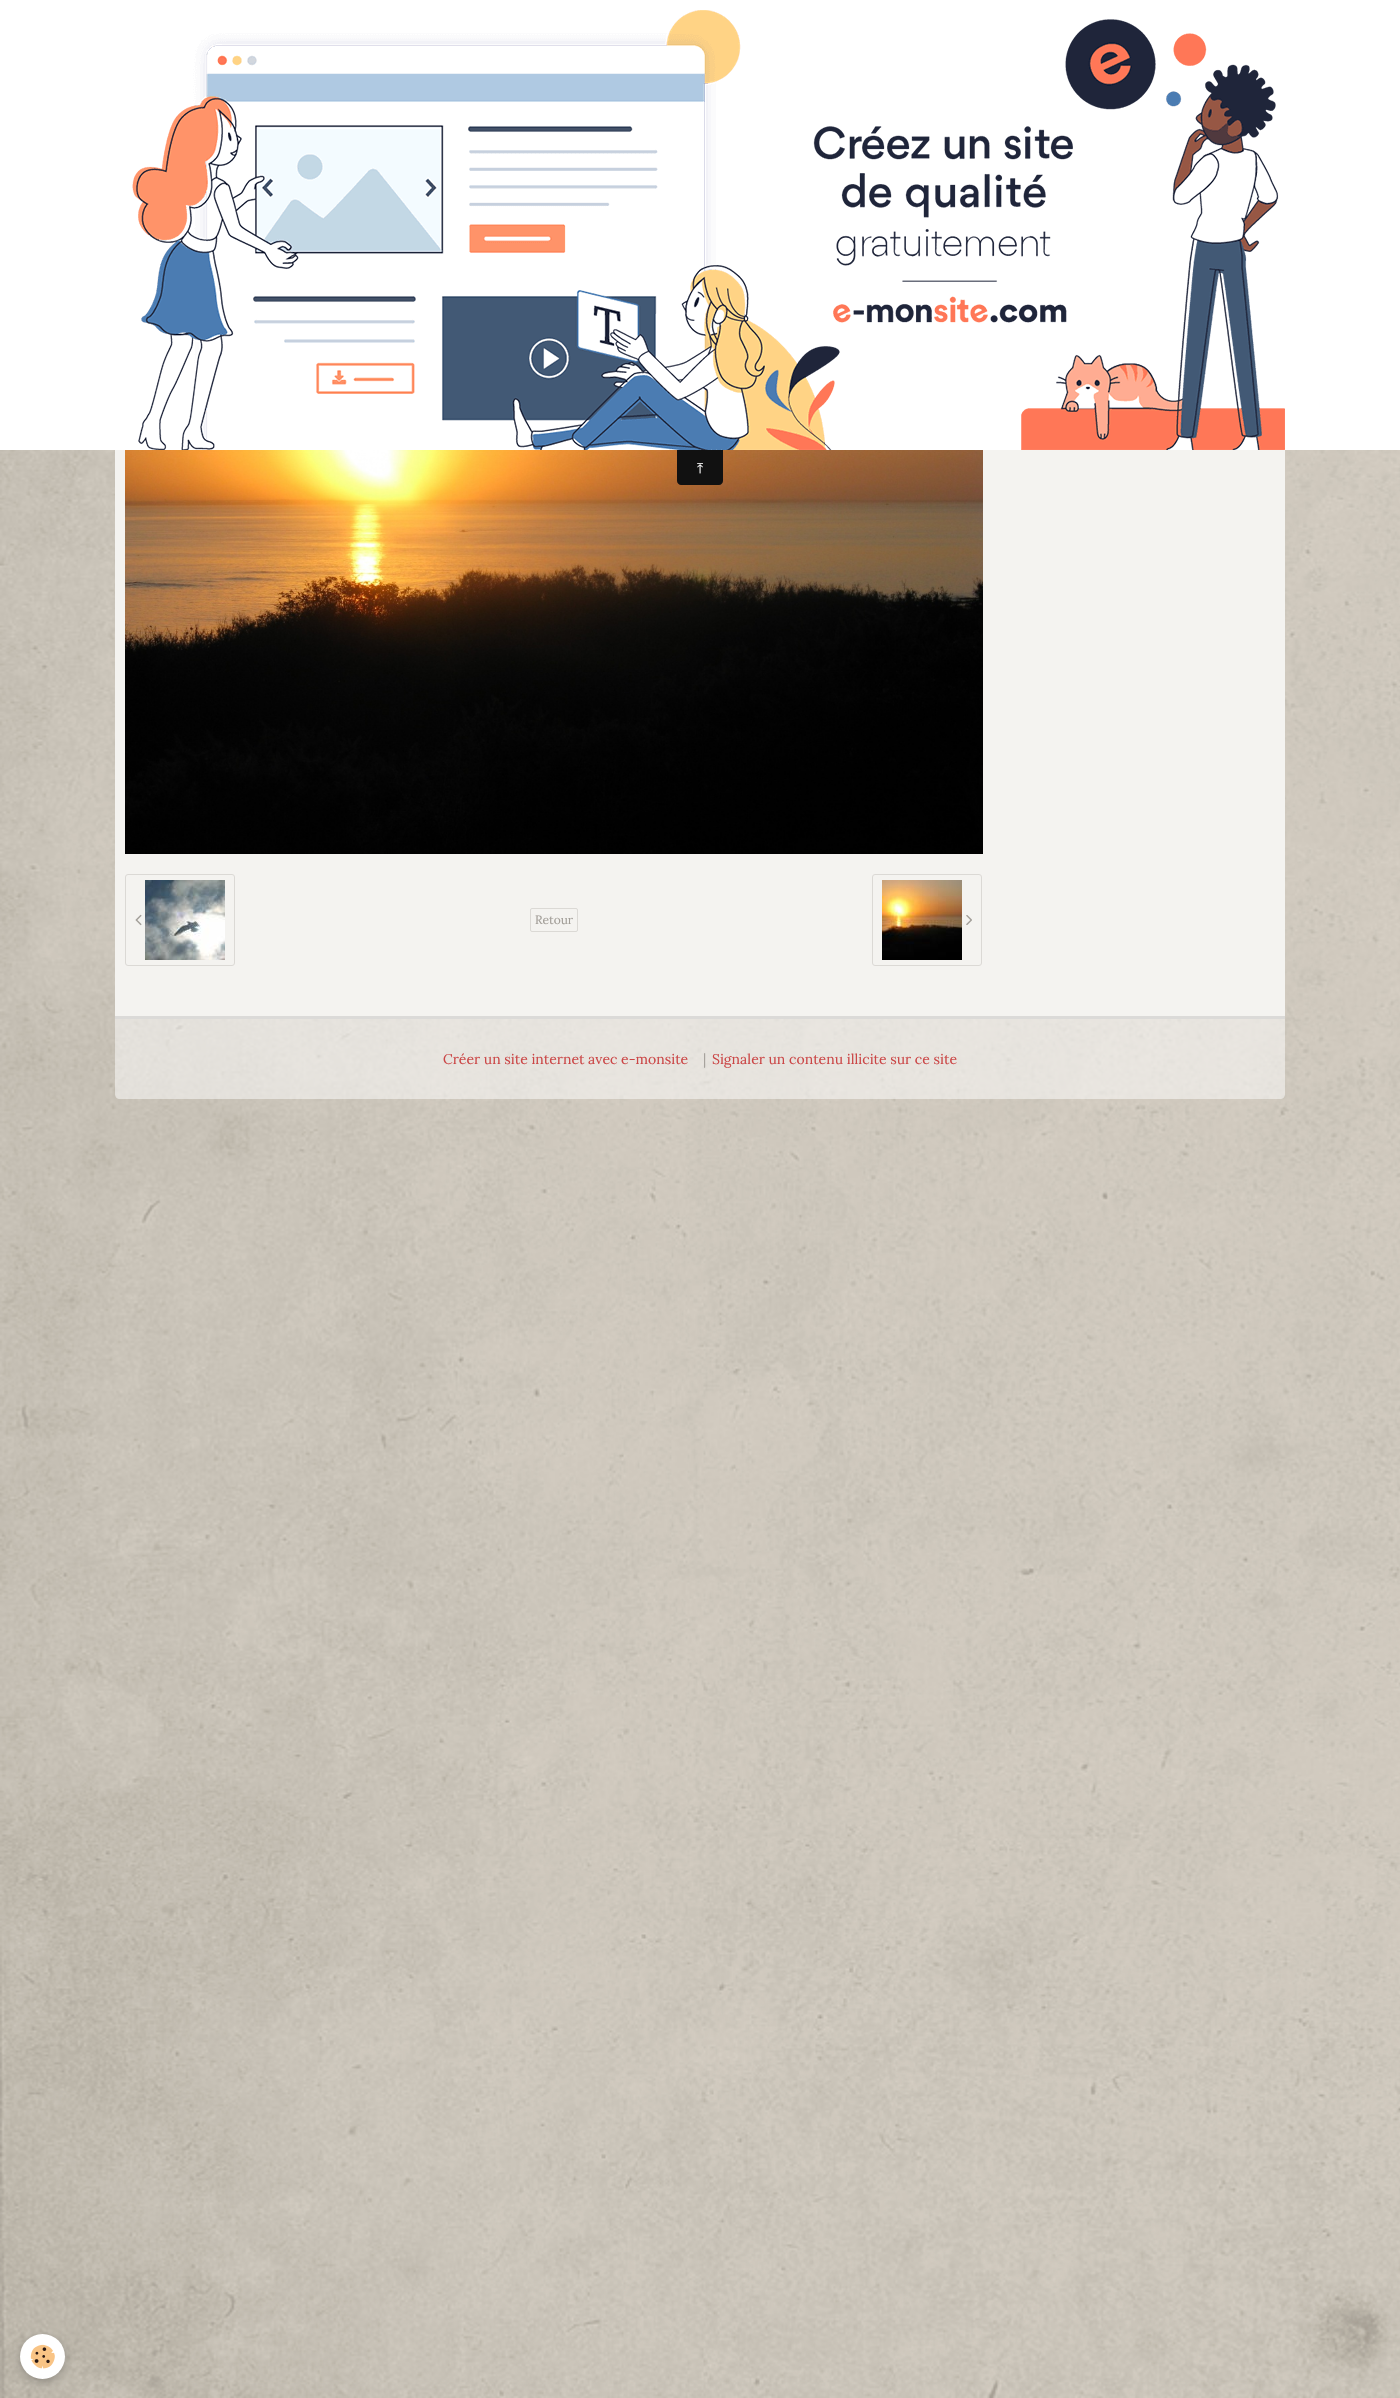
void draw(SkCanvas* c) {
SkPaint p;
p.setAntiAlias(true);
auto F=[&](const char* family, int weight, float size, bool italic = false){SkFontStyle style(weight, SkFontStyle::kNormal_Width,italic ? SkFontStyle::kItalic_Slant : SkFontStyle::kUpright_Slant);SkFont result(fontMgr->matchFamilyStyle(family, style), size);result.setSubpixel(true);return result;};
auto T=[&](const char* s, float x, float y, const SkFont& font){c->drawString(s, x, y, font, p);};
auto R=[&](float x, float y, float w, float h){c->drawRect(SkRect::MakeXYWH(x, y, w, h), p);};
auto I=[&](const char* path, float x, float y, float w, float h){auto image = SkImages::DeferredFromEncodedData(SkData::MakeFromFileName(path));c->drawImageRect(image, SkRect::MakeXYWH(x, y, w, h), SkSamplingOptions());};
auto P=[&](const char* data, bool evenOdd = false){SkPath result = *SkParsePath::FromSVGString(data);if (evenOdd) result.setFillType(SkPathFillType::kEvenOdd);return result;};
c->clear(0xffcdc5b7);
I("1.png",0,450,1400,1948);
p.setColor(0xffffffff);
R(0,0,1400,450);
I("2.png",132,10,1153,440);
p.setColor(0xfff4f3f0);
R(115,450,1170,566);
I("3.png",125,450,858,404);
p.setColor(0xff111111);
c->drawPath(P("M677 450h46v31c0 2-2 4-4 4h-38c-2 0-4-2-4-4z"),p);
auto f1 = F("FreeSerif",400,14);
p.setColor(0xffffffff);
T("⤒",697,473,f1);
I("4.png",135,914,7,12);
I("5.png",145,880,80,80);
p.setStroke(true);
p.setStrokeWidth(1);
p.setColor(0xffdbd9d5);
c->drawRoundRect(SkRect::MakeXYWH(125.5,874.5,109,91),2.5,2.5,p);
c->drawRoundRect(SkRect::MakeXYWH(530.5,908.5,47,23),1.5,1.5,p);
auto f2 = F("Lora",400,12);
p.setStroke(false);
p.setColor(0xffa19d97);
T("Retour",535,924,f2);
I("6.png",882,880,80,80);
I("7.png",966,915,6,10);
p.setStroke(true);
p.setColor(0xffdbd9d5);
c->drawRoundRect(SkRect::MakeXYWH(872.5,874.5,109,91),2.5,2.5,p);
p.setStroke(false);
p.setColor(0x80ffffff);
c->drawPath(P("M115 1016h1170v78c0 3-2 5-5 5h-1160c-3 0-5-2-5-5z"),p);
p.setColor(0xffdbdad8);
R(115,1016,1170,3);
auto f3 = F("Lora",400,14);
p.setColor(0xffcb4646);
T("Créer un site internet avec e-monsite",443,1064,f3);
p.setColor(0xffa19d97);
T("|",703,1064,f3);
p.setColor(0xffcb4646);
T("Signaler un contenu illicite sur ce site",712,1064,f3);
p.setColor(0x3d000000);
p.setMaskFilter(SkMaskFilter::MakeBlur(kNormal_SkBlurStyle, 5));
c->drawRoundRect(SkRect::MakeXYWH(20,2337,45,45),22.5,22.5,p);
p.setMaskFilter(nullptr);
p.setColor(0xffffffff);
c->drawCircle(42.5,2356.5,22.5,p);
I("8.png",30,2344,25,25);
}
